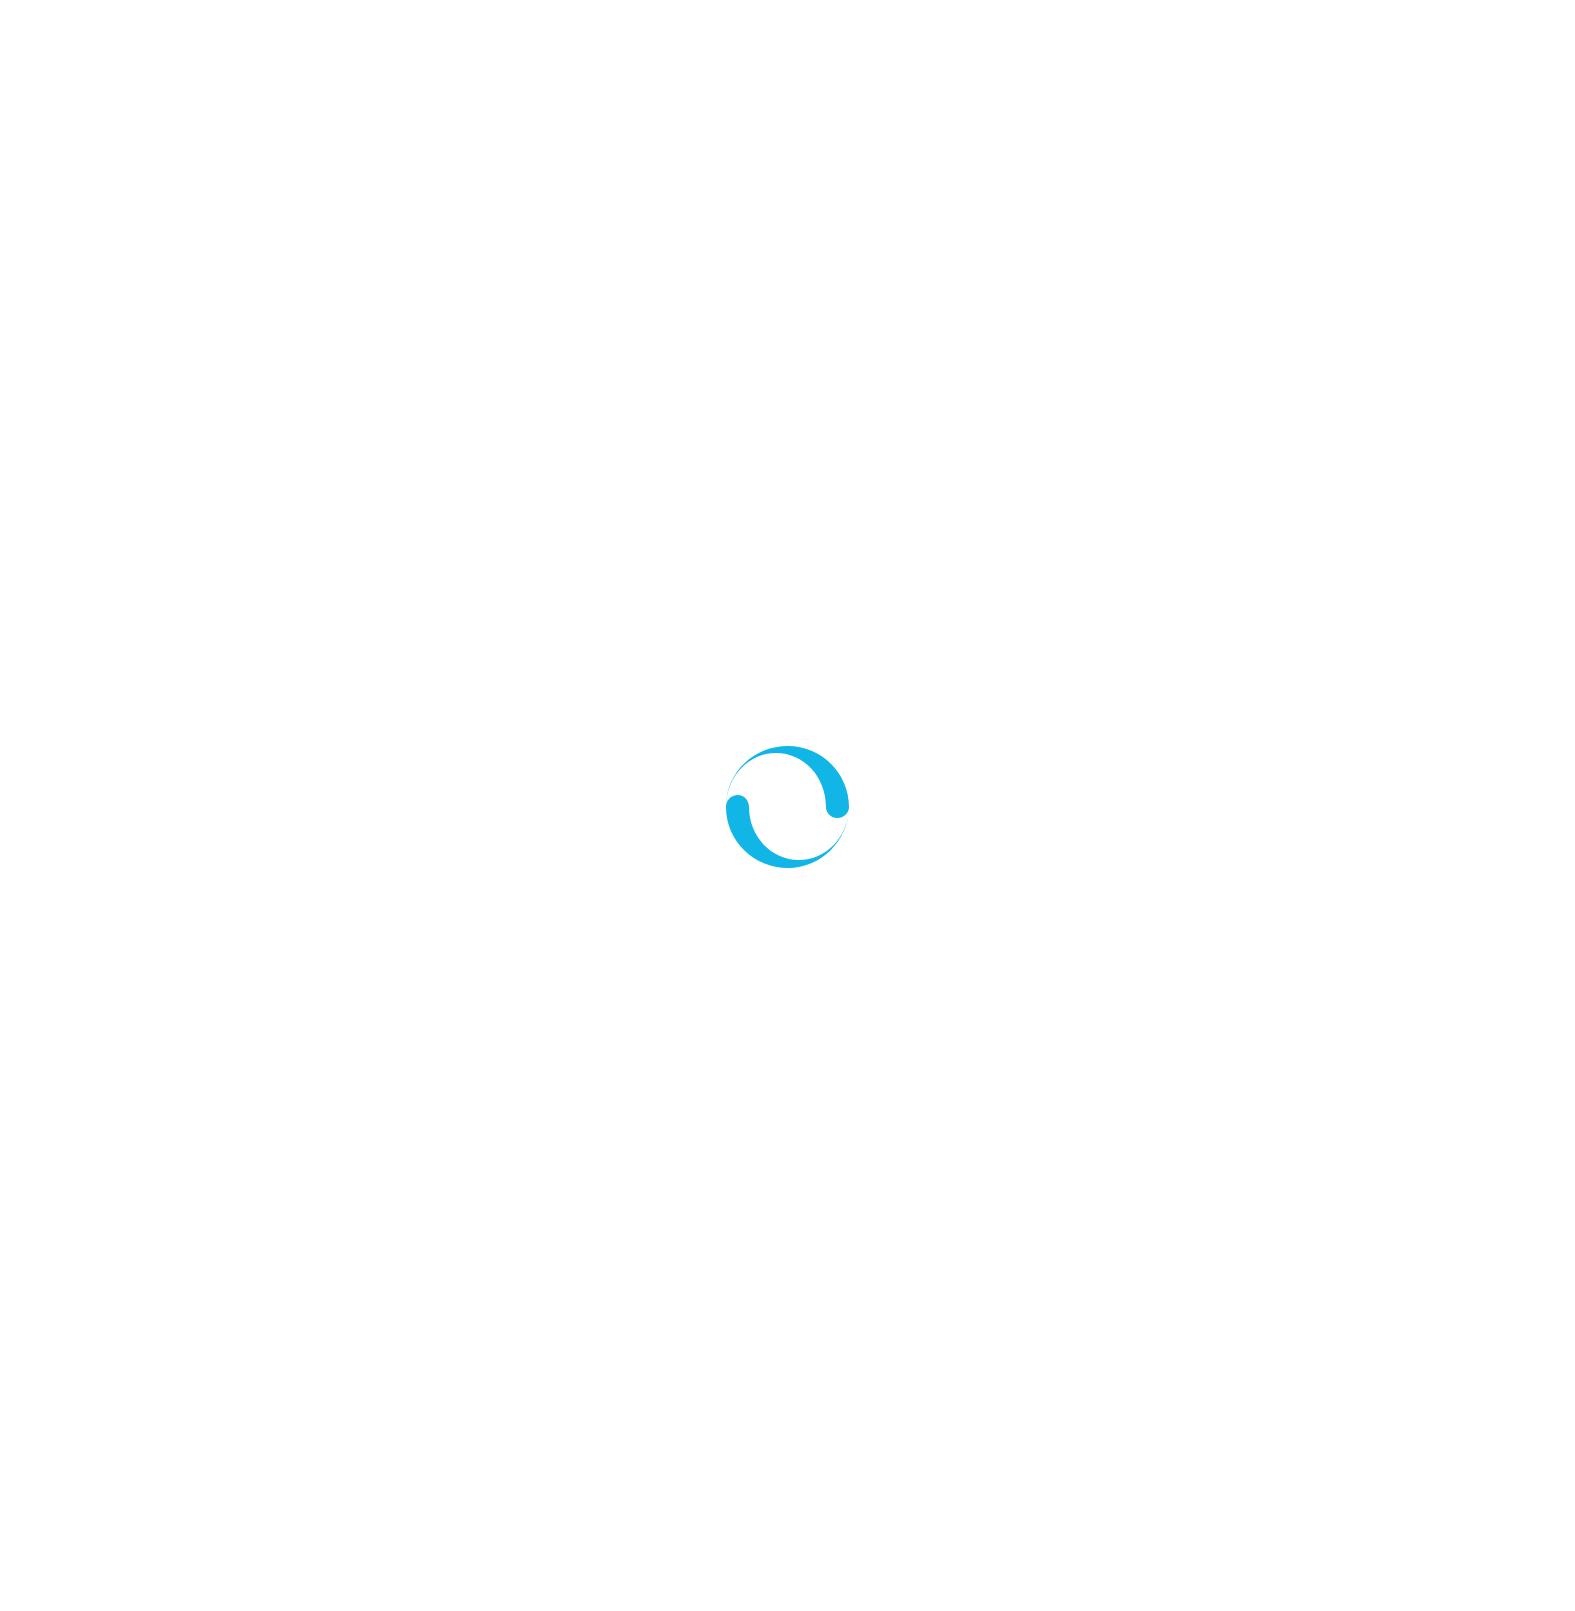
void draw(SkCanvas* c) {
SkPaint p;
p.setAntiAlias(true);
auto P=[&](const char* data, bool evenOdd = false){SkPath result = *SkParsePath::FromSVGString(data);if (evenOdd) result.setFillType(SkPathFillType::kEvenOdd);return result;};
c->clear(0xffffffff);
p.setColor(0xff11b5e6);
c->drawPath(P("M788 746c-34 0-61 26-62 59c1-29 23-52 50-52c28 0 50 24 50 54c0 6 5 11 11 11c7 0 12-5 12-11c0-34-28-61-61-61zm0 122c33 0 60-27 61-60c-1 29-23 52-50 52c-28 0-50-24-50-53c0-7-5-12-11-12c-7 0-12 5-12 12c0 34 28 61 62 61z"),p);
}
